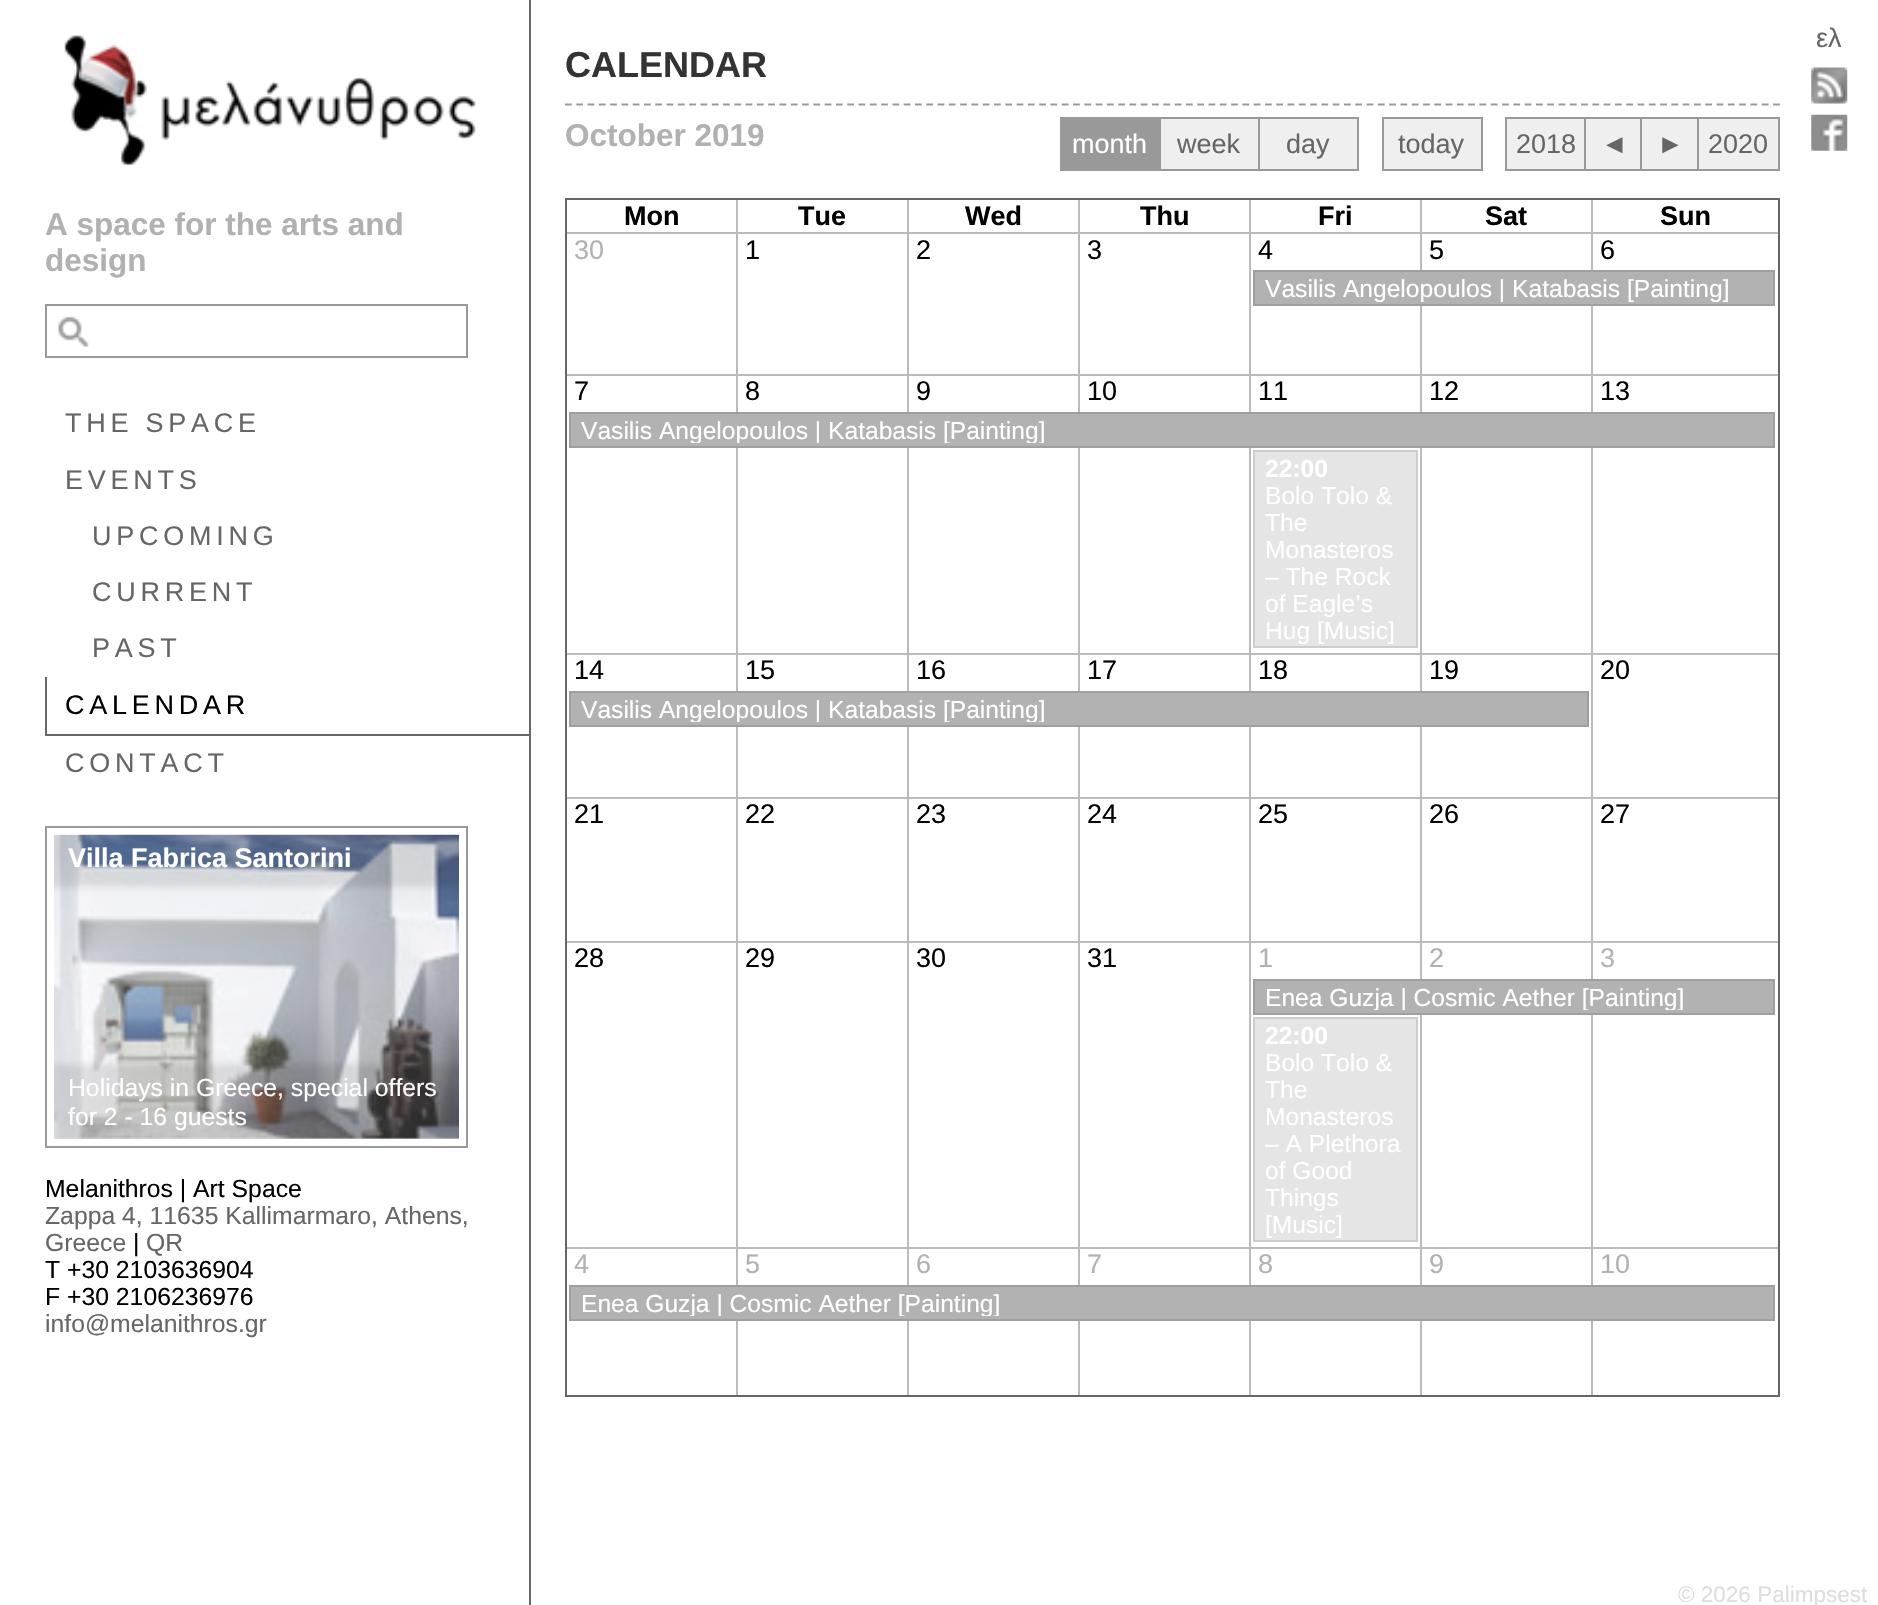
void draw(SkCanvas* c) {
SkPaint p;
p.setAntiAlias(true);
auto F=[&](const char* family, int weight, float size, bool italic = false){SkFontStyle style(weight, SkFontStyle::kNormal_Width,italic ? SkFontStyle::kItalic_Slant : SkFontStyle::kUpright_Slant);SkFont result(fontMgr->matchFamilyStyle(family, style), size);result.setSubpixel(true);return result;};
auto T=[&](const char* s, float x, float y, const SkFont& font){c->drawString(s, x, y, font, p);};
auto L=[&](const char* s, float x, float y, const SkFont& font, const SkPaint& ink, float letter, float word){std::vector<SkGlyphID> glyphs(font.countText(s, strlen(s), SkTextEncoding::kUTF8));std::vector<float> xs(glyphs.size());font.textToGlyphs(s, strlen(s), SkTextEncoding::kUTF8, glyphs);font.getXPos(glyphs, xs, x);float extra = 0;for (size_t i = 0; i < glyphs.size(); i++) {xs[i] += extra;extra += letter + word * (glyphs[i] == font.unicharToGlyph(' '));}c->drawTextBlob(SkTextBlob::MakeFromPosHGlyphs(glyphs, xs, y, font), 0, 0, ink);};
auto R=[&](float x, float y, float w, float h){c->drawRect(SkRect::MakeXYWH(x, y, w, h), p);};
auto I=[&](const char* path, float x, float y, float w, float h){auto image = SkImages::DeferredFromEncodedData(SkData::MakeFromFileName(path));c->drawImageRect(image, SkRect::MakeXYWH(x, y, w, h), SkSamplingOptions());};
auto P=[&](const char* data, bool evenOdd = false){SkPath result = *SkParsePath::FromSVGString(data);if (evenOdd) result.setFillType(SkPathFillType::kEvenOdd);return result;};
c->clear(0xffffffff);
auto f1 = F("Liberation Sans",400,27);
p.setColor(0xff666666);
T("ελ",1816,47,f1);
I("1.png",1811,67,37,37);
I("2.png",1811,114,37,37);
R(529,0,2,1605);
I("3.png",64,35,412,130);
I("4.png",78,45,62,75);
auto f2 = F("Liberation Sans",700,31.5);
p.setColor(0xffb1b1b1);
T("A space for the arts and",45,235,f2);
T("design",45,271,f2);
p.setStroke(true);
p.setStrokeWidth(2);
p.setColor(0xff999999);
c->drawRect(SkRect::MakeXYWH(46,305,421,52),p);
I("5.png",58,316,31,32);
p.setStroke(false);
p.setColor(0xff666666);
L("THE SPACE",65,432,f1,p,4.75,0);
L("EVENTS",65,489,f1,p,4.75,0);
L("UPCOMING",92,545,f1,p,4.75,0);
L("CURRENT",92,601,f1,p,4.75,0);
L("PAST",92,657,f1,p,4.75,0);
R(45,734,484,2);
R(45,677,2,59);
p.setColor(0xff000000);
L("CALENDAR",65,714,f1,p,4.75,0);
p.setColor(0xff666666);
L("CONTACT",65,772,f1,p,4.75,0);
p.setStroke(true);
p.setColor(0xff999999);
c->drawRect(SkRect::MakeXYWH(46,827,421,320),p);
I("6.png",54,834,405,305);
c->save();
c->clipRect(SkRect::MakeXYWH(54,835,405,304));
c->clipPath(P("M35 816h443v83h-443zm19 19h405v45h-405z",true),true);
p.setStroke(false);
p.setColor(0x1a000000);
p.setMaskFilter(SkMaskFilter::MakeBlur(kNormal_SkBlurStyle, 3.5));
c->drawRect(SkRect::MakeXYWH(47,828,419,59),p);
p.setMaskFilter(nullptr);
c->restore();
R(54,835,405,45);
auto f3 = F("Liberation Sans",700,27);
p.setColor(0xffffffff);
T("Villa Fabrica Santorini",68,867,f3);
c->save();
c->clipRect(SkRect::MakeXYWH(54,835,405,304));
c->clipPath(P("M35 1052h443v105h-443zm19 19h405v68h-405z",true),true);
p.setColor(0x1a000000);
p.setMaskFilter(SkMaskFilter::MakeBlur(kNormal_SkBlurStyle, 3.5));
c->drawRect(SkRect::MakeXYWH(47,1064,419,81),p);
p.setMaskFilter(nullptr);
c->restore();
R(54,1071,405,68);
auto f4 = F("Liberation Sans",400,24.75);
p.setColor(0xffffffff);
T("Holidays in Greece, special offers",68,1096,f4);
T("for 2 - 16 guests",68,1125,f4);
p.setColor(0xff000000);
T("Melanithros | Art Space",45,1197,f4);
p.setColor(0xff666666);
T("Zappa 4, 11635 Kallimarmaro, Athens,",45,1224,f4);
T("Greece",45,1251,f4);
p.setColor(0xff000000);
T("|",133,1251,f4);
p.setColor(0xff666666);
T("QR",146,1251,f4);
p.setColor(0xff000000);
T("Τ +30 2103636904",45,1278,f4);
T("F +30 2106236976",45,1305,f4);
p.setColor(0xff666666);
T("info@melanithros.gr",45,1332,f4);
auto f5 = F("Liberation Sans",700,36);
p.setColor(0xff333333);
T("CALENDAR",565,77,f5);
p.setStroke(true);
p.setStrokeWidth(2.2);
p.setColor(0xff999999);
p.setPathEffect(SkDashPathEffect::Make({{6.75f,4.54f}}, 0));
c->drawPath(P("M565 104.5h1215"),p);
p.setPathEffect(nullptr);
p.setStroke(false);
p.setColor(0xffb1b1b1);
T("October 2019",565,146,f2);
p.setColor(0xff999999);
R(1060,117,99,54);
p.setColor(0xffffffff);
T("month",1072,153,f1);
p.setColor(0xffefefef);
c->drawRect(SkRect::MakeXYWH(1160,118,99,52),p);
p.setStroke(true);
p.setStrokeWidth(2);
p.setColor(0xff999999);
c->drawRect(SkRect::MakeXYWH(1160,118,99,52),p);
p.setStroke(false);
p.setColor(0xff666666);
T("week",1177,153,f1);
p.setColor(0xffefefef);
c->drawRect(SkRect::MakeXYWH(1259,118,99,52),p);
p.setStroke(true);
p.setColor(0xff999999);
c->drawRect(SkRect::MakeXYWH(1259,118,99,52),p);
p.setStroke(false);
p.setColor(0xff666666);
T("day",1286,153,f1);
p.setColor(0xffefefef);
c->drawRect(SkRect::MakeXYWH(1383,118,99,52),p);
p.setStroke(true);
p.setColor(0xff999999);
c->drawRect(SkRect::MakeXYWH(1383,118,99,52),p);
p.setStroke(false);
p.setColor(0xff666666);
T("today",1398,153,f1);
p.setColor(0xffefefef);
c->drawRect(SkRect::MakeXYWH(1506,118,79,52),p);
p.setStroke(true);
p.setColor(0xff999999);
c->drawRect(SkRect::MakeXYWH(1506,118,79,52),p);
p.setStroke(false);
p.setColor(0xff666666);
T("2018",1516,153,f1);
p.setColor(0xffefefef);
R(1586,119,54,50);
p.setStroke(true);
p.setColor(0xff999999);
c->drawRect(SkRect::MakeXYWH(1585,118,57,52),p);
p.setStroke(false);
p.setColor(0xff666666);
T("◄",1601,153,f1);
p.setColor(0xffefefef);
c->drawRect(SkRect::MakeXYWH(1641,118,57,52),p);
p.setStroke(true);
p.setColor(0xff999999);
c->drawRect(SkRect::MakeXYWH(1641,118,57,52),p);
p.setStroke(false);
p.setColor(0xff666666);
T("►",1657,153,f1);
p.setColor(0xffefefef);
c->drawRect(SkRect::MakeXYWH(1698,118,81,52),p);
p.setStroke(true);
p.setColor(0xff999999);
c->drawRect(SkRect::MakeXYWH(1698,118,81,52),p);
p.setStroke(false);
p.setColor(0xff666666);
T("2020",1708,153,f1);
p.setStroke(true);
c->drawRect(SkRect::MakeXYWH(566,199,1213,1197),p);
p.setStroke(false);
p.setColor(0xffbbbbbb);
R(736,200,2,32);
p.setColor(0xff000000);
T("Mon",624,225,f3);
p.setColor(0xffbbbbbb);
R(907,200,2,32);
p.setColor(0xff000000);
T("Tue",798,225,f3);
p.setColor(0xffbbbbbb);
R(1078,200,2,32);
p.setColor(0xff000000);
T("Wed",965,225,f3);
p.setColor(0xffbbbbbb);
R(1249,200,2,32);
p.setColor(0xff000000);
T("Thu",1140,225,f3);
p.setColor(0xffbbbbbb);
R(1420,200,2,32);
p.setColor(0xff000000);
T("Fri",1318,225,f3);
p.setColor(0xffbbbbbb);
R(1591,200,2,32);
p.setColor(0xff000000);
T("Sat",1485,225,f3);
T("Sun",1660,225,f3);
p.setColor(0xffbbbbbb);
R(567,232,1211,2);
R(736,232,2,1163);
R(567,374,171,2);
p.setColor(0xffb1b1b1);
T("30",574,259,f1);
p.setColor(0xffbbbbbb);
R(907,232,2,1163);
R(738,374,171,2);
p.setColor(0xff000000);
T("1",745,259,f1);
p.setColor(0xffbbbbbb);
R(1078,232,2,1163);
R(909,374,171,2);
p.setColor(0xff000000);
T("2",916,259,f1);
p.setColor(0xffbbbbbb);
R(1249,232,2,1163);
R(1080,374,171,2);
p.setColor(0xff000000);
T("3",1087,259,f1);
p.setColor(0xffbbbbbb);
R(1420,232,2,1163);
R(1251,374,171,2);
p.setColor(0xff000000);
T("4",1258,259,f1);
p.setColor(0xffbbbbbb);
R(1591,232,2,1163);
R(1422,374,356,2);
p.setColor(0xff000000);
T("5",1429,259,f1);
T("6",1600,259,f1);
p.setColor(0xffbbbbbb);
R(567,653,1211,2);
p.setColor(0xff000000);
T("7",574,400,f1);
T("8",745,400,f1);
T("9",916,400,f1);
T("10",1087,400,f1);
T("11",1258,400,f1);
T("12",1429,400,f1);
T("13",1600,400,f1);
p.setColor(0xffbbbbbb);
R(567,797,1211,2);
p.setColor(0xff000000);
T("14",574,679,f1);
T("15",745,679,f1);
T("16",916,679,f1);
T("17",1087,679,f1);
T("18",1258,679,f1);
T("19",1429,679,f1);
T("20",1600,679,f1);
p.setColor(0xffbbbbbb);
R(567,941,1211,2);
p.setColor(0xff000000);
T("21",574,823,f1);
T("22",745,823,f1);
T("23",916,823,f1);
T("24",1087,823,f1);
T("25",1258,823,f1);
T("26",1429,823,f1);
T("27",1600,823,f1);
p.setColor(0xffbbbbbb);
R(567,1247,1211,2);
p.setColor(0xff000000);
T("28",574,967,f1);
T("29",745,967,f1);
T("30",916,967,f1);
T("31",1087,967,f1);
p.setColor(0xffb1b1b1);
T("1",1258,967,f1);
T("2",1429,967,f1);
T("3",1600,967,f1);
T("4",574,1273,f1);
T("5",745,1273,f1);
T("6",916,1273,f1);
T("7",1087,1273,f1);
T("8",1258,1273,f1);
T("9",1429,1273,f1);
T("10",1600,1273,f1);
p.setColor(0xffb2b2b2);
c->drawRect(SkRect::MakeXYWH(1254,271,520,34),p);
p.setStroke(true);
p.setColor(0xff9f9f9f);
c->drawRect(SkRect::MakeXYWH(1254,271,520,34),p);
c->save();
c->clipRect(SkRect::MakeXYWH(1265,275,499,27));
auto f6 = F("Liberation Sans",400,24.6);
p.setStroke(false);
p.setColor(0xffffffff);
T("Vasilis Angelopoulos | Katabasis [Painting]",1265,297,f6);
c->restore();
p.setColor(0xffb2b2b2);
c->drawRect(SkRect::MakeXYWH(570,413,1204,34),p);
p.setStroke(true);
p.setColor(0xff9f9f9f);
c->drawRect(SkRect::MakeXYWH(570,413,1204,34),p);
c->save();
c->clipRect(SkRect::MakeXYWH(581,416,1183,27));
p.setStroke(false);
p.setColor(0xffffffff);
T("Vasilis Angelopoulos | Katabasis [Painting]",581,439,f6);
c->restore();
p.setColor(0xffe5e5e5);
c->drawRect(SkRect::MakeXYWH(1254,451,163,196),p);
p.setStroke(true);
p.setColor(0xffcdcdcd);
c->drawRect(SkRect::MakeXYWH(1254,451,163,196),p);
auto f7 = F("Liberation Sans",700,24.6);
p.setStroke(false);
p.setColor(0xffffffff);
T("22:00",1265,477,f7);
T("Bolo Tolo &",1265,504,f6);
T("The",1265,531,f6);
T("Monasteros",1265,558,f6);
T("– The Rock",1265,585,f6);
T("of Eagle’s",1265,612,f6);
c->save();
c->clipRect(SkRect::MakeXYWH(1265,455,141,189));
T("Hug [Music]",1265,639,f6);
c->restore();
p.setColor(0xffb2b2b2);
c->drawRect(SkRect::MakeXYWH(570,692,1018,34),p);
p.setStroke(true);
p.setColor(0xff9f9f9f);
c->drawRect(SkRect::MakeXYWH(570,692,1018,34),p);
c->save();
c->clipRect(SkRect::MakeXYWH(581,695,996,27));
p.setStroke(false);
p.setColor(0xffffffff);
T("Vasilis Angelopoulos | Katabasis [Painting]",581,718,f6);
c->restore();
p.setColor(0xffb2b2b2);
c->drawRect(SkRect::MakeXYWH(1254,980,520,34),p);
p.setStroke(true);
p.setColor(0xff9f9f9f);
c->drawRect(SkRect::MakeXYWH(1254,980,520,34),p);
c->save();
c->clipRect(SkRect::MakeXYWH(1265,983,499,27));
p.setStroke(false);
p.setColor(0xffffffff);
T("Enea Guzja | Cosmic Aether [Painting]",1265,1006,f6);
c->restore();
p.setColor(0xffe5e5e5);
c->drawRect(SkRect::MakeXYWH(1254,1018,163,223),p);
p.setStroke(true);
p.setColor(0xffcdcdcd);
c->drawRect(SkRect::MakeXYWH(1254,1018,163,223),p);
p.setStroke(false);
p.setColor(0xffffffff);
T("22:00",1265,1044,f7);
T("Bolo Tolo &",1265,1071,f6);
T("The",1265,1098,f6);
T("Monasteros",1265,1125,f6);
T("– A Plethora",1265,1152,f6);
T("of Good",1265,1179,f6);
T("Things",1265,1206,f6);
c->save();
c->clipRect(SkRect::MakeXYWH(1265,1022,141,216));
T("[Music]",1265,1233,f6);
c->restore();
p.setColor(0xffb2b2b2);
c->drawRect(SkRect::MakeXYWH(570,1286,1204,34),p);
p.setStroke(true);
p.setColor(0xff9f9f9f);
c->drawRect(SkRect::MakeXYWH(570,1286,1204,34),p);
c->save();
c->clipRect(SkRect::MakeXYWH(581,1289,1183,27));
p.setStroke(false);
p.setColor(0xffffffff);
T("Enea Guzja | Cosmic Aether [Painting]",581,1312,f6);
c->restore();
auto f8 = F("Liberation Sans",400,22.5);
p.setColor(0xffdddddd);
T("© 2026 Palimpsest",1678,1602,f8);
}
